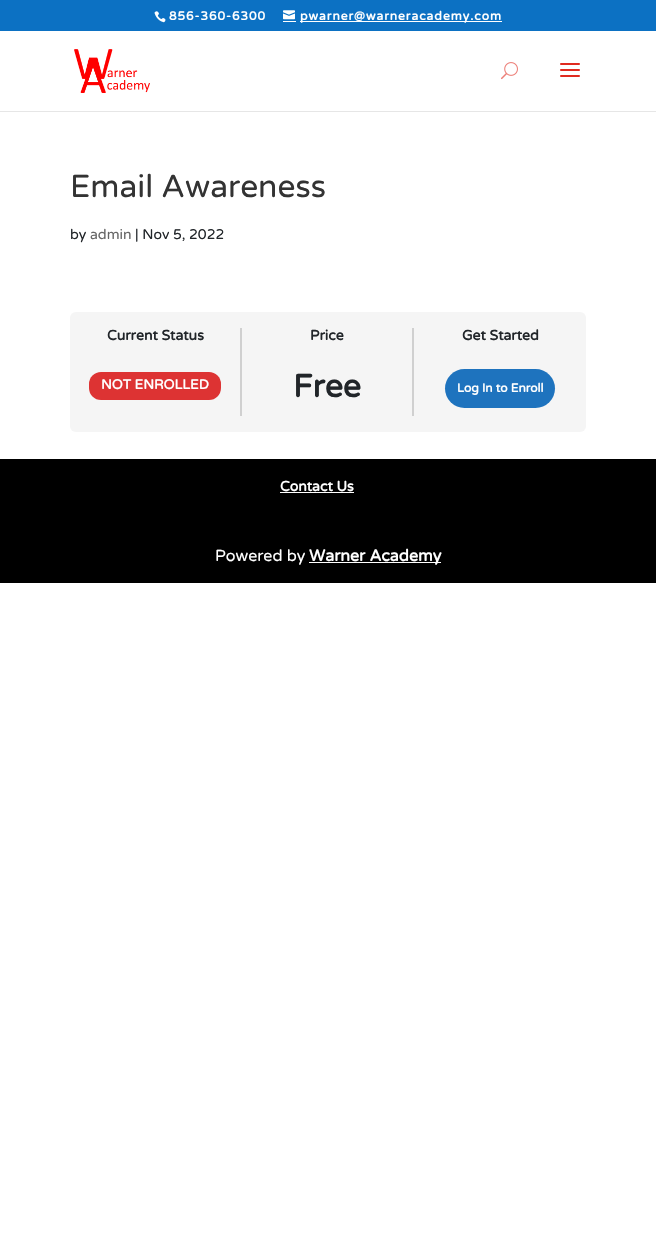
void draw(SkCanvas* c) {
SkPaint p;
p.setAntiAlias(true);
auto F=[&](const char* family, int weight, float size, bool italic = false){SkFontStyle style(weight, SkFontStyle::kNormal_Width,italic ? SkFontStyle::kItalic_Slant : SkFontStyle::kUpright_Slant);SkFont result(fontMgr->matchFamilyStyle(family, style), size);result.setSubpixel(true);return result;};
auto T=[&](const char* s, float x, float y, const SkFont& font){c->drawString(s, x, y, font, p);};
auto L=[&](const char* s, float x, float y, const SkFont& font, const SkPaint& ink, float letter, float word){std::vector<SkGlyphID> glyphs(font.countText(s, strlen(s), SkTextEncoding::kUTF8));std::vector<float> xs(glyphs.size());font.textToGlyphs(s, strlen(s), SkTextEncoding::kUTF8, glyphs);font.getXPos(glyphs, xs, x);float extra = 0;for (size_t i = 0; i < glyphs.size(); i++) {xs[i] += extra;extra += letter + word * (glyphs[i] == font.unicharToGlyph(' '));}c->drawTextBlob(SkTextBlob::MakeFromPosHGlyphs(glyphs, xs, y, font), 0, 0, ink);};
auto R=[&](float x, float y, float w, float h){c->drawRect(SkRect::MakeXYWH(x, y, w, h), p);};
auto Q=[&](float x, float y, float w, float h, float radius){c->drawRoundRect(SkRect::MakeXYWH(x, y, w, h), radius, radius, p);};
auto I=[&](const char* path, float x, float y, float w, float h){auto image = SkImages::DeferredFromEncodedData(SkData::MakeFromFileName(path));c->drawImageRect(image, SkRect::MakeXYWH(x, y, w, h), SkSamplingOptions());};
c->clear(0xffffffff);
p.setColor(0xff0c71c3);
R(0,0,656,31);
I("1.png",154,11,12,12);
auto f1 = F("Varela Round",700,12);
p.setColor(0xffffffff);
L("856-360-6300",169,20,f1,p,1,0);
I("2.png",283,10,12,10);
R(300,21,202,1);
L("pwarner@warneracademy.com",300,20,f1,p,1,0);
R(283,21,13,1);
p.setColor(0xffe6e6e6);
R(0,111,656,1);
I("3.png",74,49,76,44);
I("4.png",501,62,17,18);
I("5.png",560,63,20,14);
auto f2 = F("Varela Round",400,31.75);
p.setColor(0xff333333);
T("Email Awareness",70,197,f2);
auto f3 = F("Varela Round",400,14);
p.setColor(0xff212529);
T("by",70,239,f3);
p.setColor(0xff666666);
T("admin",90,239,f3);
p.setColor(0xff212529);
T("| Nov 5, 2022",135,239,f3);
p.setColor(0xfff5f5f5);
Q(70,312,516,120,6);
p.setColor(0xffd0d0d0);
R(240,328,2,88);
auto f4 = F("Varela Round",700,14);
p.setColor(0xff212529);
T("Current Status",107,340,f4);
p.setColor(0xffdd3333);
Q(89,372,132,28,12);
auto f5 = F("Varela Round",700,13.5);
p.setColor(0xffffffff);
T("NOT ENROLLED",101,389,f5);
p.setColor(0xffd0d0d0);
R(412,328,2,88);
p.setColor(0xff212529);
T("Price",310,340,f4);
auto f6 = F("Varela Round",700,32);
T("Free",293,397,f6);
T("Get Started",462,340,f4);
p.setColor(0xff1e73be);
Q(445,369,110,39,19.5);
p.setColor(0xffffffff);
T("Log In to Enroll",457,392,f1);
p.setColor(0xff000000);
R(0,459,656,124);
p.setColor(0xffffffff);
T("Contact Us",280,491,f4);
R(280,492,74,1);
auto f7 = F("Varela Round",400,16);
T("Powered by",215,561,f7);
R(309,562,132,1);
auto f8 = F("Varela Round",700,16);
T("Warner Academy",309,561,f8);
}
